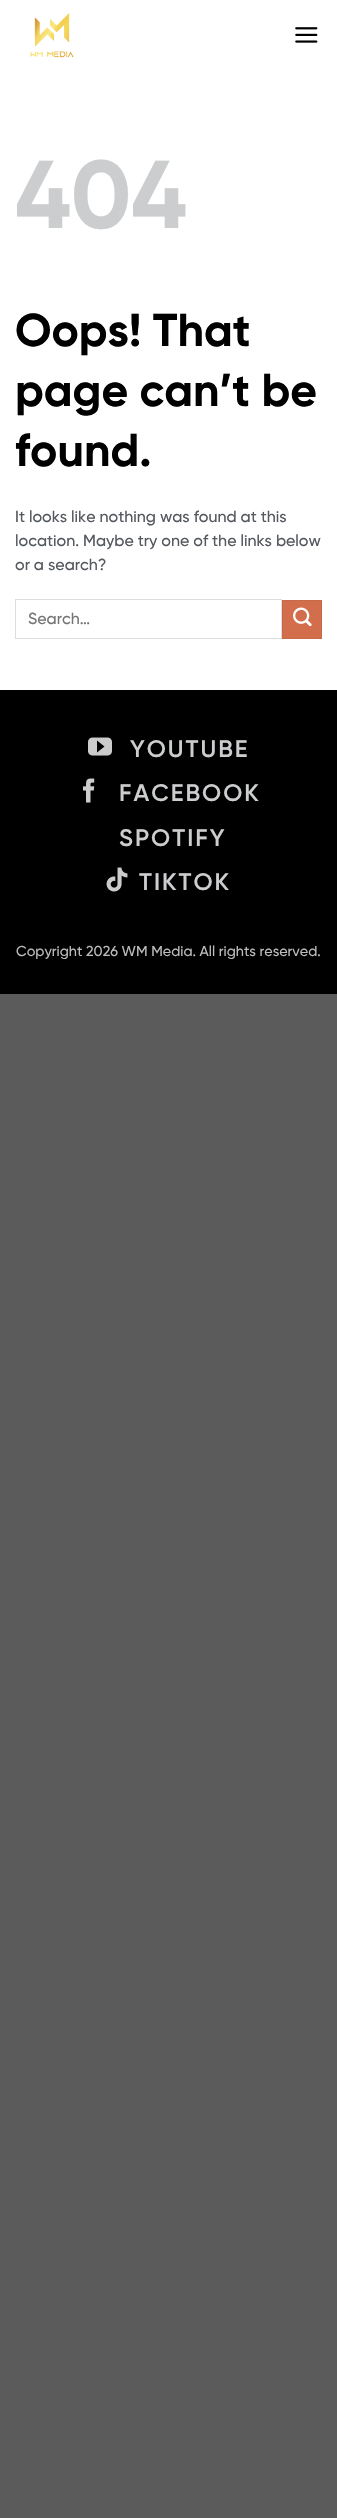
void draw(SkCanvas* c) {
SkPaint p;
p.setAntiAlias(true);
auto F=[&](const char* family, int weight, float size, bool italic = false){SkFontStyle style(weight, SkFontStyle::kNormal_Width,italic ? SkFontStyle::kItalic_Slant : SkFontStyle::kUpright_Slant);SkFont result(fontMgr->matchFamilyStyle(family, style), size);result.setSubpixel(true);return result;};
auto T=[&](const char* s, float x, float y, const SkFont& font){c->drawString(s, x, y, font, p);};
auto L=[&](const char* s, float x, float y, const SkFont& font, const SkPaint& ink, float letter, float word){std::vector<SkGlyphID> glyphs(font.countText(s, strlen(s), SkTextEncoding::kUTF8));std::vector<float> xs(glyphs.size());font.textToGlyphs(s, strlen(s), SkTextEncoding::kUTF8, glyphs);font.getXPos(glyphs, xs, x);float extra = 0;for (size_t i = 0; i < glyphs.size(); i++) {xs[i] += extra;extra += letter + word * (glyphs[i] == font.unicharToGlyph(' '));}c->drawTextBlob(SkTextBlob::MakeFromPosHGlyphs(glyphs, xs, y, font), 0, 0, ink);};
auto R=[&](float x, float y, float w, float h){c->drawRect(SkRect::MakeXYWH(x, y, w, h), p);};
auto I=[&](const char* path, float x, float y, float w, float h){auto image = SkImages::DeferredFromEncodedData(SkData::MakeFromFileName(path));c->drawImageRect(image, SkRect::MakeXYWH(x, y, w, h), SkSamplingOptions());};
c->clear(0xff5b5b5b);
p.setColor(0xffffffff);
R(0,0,337,690);
I("1.png",30,13,44,45);
I("2.png",295,27,23,16);
auto f1 = F("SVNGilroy",700,96);
p.setColor(0xffcccdcf);
T("404",15,228,f1);
auto f2 = F("SVNGilroy",700,46);
p.setColor(0xff000000);
T("Oops! That",15,346,f2);
T("page can’t be",15,406,f2);
T("found.",15,466,f2);
auto f3 = F("SVNGilroy",500,16);
p.setColor(0xff54595f);
T("It looks like nothing was found at this",15,522,f3);
T("location. Maybe try one of the links below",15,546,f3);
T("or a search?",15,570,f3);
p.setStroke(true);
p.setStrokeWidth(1);
p.setColor(0xffdddddd);
c->drawRect(SkRect::MakeXYWH(15.5,599.5,266,39),p);
p.setStroke(false);
p.setColor(0xff757575);
T("Search…",28,624,f3);
p.setColor(0xffd26e4b);
c->drawRect(SkRect::MakeXYWH(282.5,600.5,39,38),p);
p.setStroke(true);
p.setColor(0xffc86947);
c->drawRect(SkRect::MakeXYWH(282.5,600.5,39,38),p);
I("3.png",293,607,19,20);
p.setStroke(false);
p.setColor(0xff000000);
R(0,690,337,304);
I("4.png",88,737,24,19);
auto f4 = F("SVNGilroy",600,24);
p.setColor(0xffcccdcf);
L("YOUTUBE",130,757,f4,p,2,0);
I("5.png",83,778,12,25);
L("FACEBOOK",119,801,f4,p,2,0);
L("SPOTIFY",119,846,f4,p,2,0);
I("6.png",106,867,22,25);
L("TIKTOK",139,890,f4,p,2,0);
auto f5 = F("SVNGilroy",500,14.4);
p.setColor(0xffbcbcbc);
T("Copyright 2026 WM Media. All rights reserved.",16,956,f5);
}
